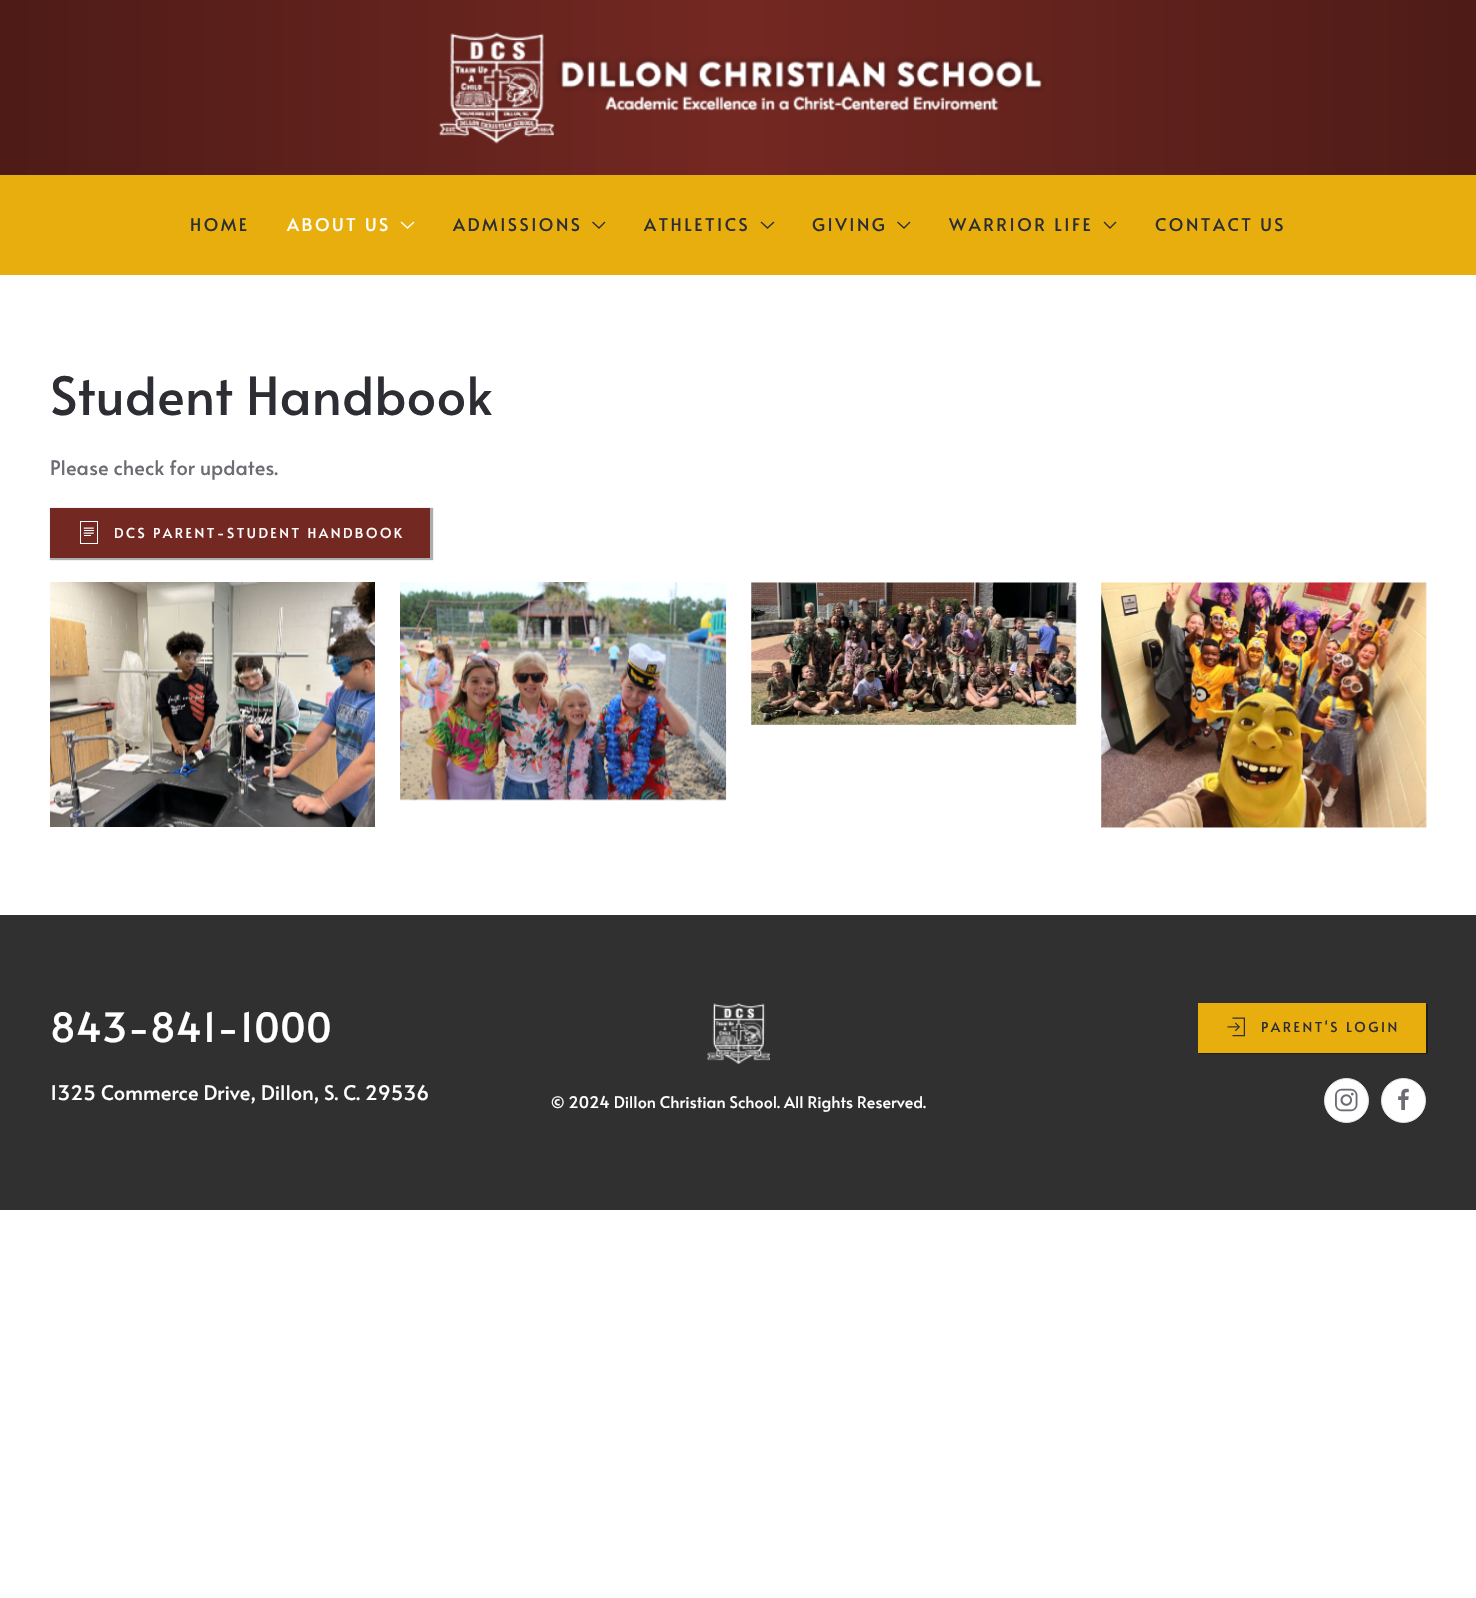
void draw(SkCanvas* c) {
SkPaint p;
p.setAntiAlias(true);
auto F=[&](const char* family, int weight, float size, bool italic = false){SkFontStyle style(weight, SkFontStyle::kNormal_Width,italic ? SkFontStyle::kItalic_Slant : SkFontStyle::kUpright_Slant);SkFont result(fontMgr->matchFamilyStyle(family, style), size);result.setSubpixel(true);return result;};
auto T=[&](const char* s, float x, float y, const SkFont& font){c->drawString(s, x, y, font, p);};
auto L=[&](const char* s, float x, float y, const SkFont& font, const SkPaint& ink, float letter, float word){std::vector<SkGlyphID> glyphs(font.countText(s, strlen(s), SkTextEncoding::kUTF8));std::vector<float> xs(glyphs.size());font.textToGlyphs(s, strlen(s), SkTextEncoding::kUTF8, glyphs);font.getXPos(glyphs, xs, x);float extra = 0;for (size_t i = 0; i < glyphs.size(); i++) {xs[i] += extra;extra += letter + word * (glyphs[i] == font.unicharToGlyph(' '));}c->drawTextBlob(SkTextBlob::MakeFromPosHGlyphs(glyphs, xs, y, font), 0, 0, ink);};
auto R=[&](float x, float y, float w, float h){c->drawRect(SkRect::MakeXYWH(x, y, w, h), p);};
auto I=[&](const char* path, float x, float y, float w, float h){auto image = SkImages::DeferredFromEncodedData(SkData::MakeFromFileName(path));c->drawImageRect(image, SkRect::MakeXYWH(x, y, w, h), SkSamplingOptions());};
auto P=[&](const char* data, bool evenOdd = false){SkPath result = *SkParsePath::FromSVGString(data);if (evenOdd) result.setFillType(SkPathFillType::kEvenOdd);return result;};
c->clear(0xffffffff);
{
const SkColor colors[] = {0xff4e1b17,0xff742822,0xff4e1b17};
const float stops[] = {0,.5,1};
const SkPoint ends[] = {{0,88}, {1476,87}};
p.setShader(SkGradientShader::MakeLinear(ends, colors, stops, 3, SkTileMode::kClamp));
p.setAlpha(255);
}
R(0,0,1476,175);
I("1.png",438,32,607,112);
p.setShader(nullptr);
p.setColor(0xffe8ae0e);
R(0,175,1476,100);
auto f1 = F("Alata",400,17.5);
p.setColor(0xff2d2e33);
L("HOME",190,231,f1,p,2.5,0);
p.setColor(0xffffffff);
L("ABOUT US",287,231,f1,p,2.5,0);
p.setStroke(true);
p.setStrokeWidth(1.4);
c->drawPath(P("M401 222l6.5 6l6.5-6"),p);
p.setStroke(false);
p.setColor(0xff2d2e33);
L("ADMISSIONS",453,231,f1,p,2.5,0);
p.setStroke(true);
c->drawPath(P("M592.5 222l6.5 6l6-6"),p);
p.setStroke(false);
L("ATHLETICS",644,231,f1,p,2.5,0);
p.setStroke(true);
c->drawPath(P("M761 222l6.5 6l6.5-6"),p);
p.setStroke(false);
L("GIVING",812,231,f1,p,2.5,0);
p.setStroke(true);
c->drawPath(P("M897.5 222l6.5 6l6-6"),p);
p.setStroke(false);
L("WARRIOR LIFE",949,231,f1,p,2.5,0);
p.setStroke(true);
c->drawPath(P("M1104 222l6 6l6-6"),p);
p.setStroke(false);
L("CONTACT US",1155,231,f1,p,2.5,0);
auto f2 = F("Alata",400,52.5);
T("Student Handbook",50,415,f2);
auto f3 = F("Alata",400,20);
p.setColor(0xff6c6d74);
T("Please check for updates.",50,475,f3);
p.setColor(0x52000000);
p.setMaskFilter(SkMaskFilter::MakeBlur(kNormal_SkBlurStyle, .5));
c->drawRect(SkRect::MakeXYWH(50,508,383,52),p);
p.setMaskFilter(nullptr);
p.setColor(0xff742822);
R(50,508,380,50);
I("2.png",80,521,18,23);
auto f4 = F("Alata",400,13.75);
p.setColor(0xffffffff);
L("DCS PARENT-STUDENT HANDBOOK",114,538,f4,p,2.5,0);
I("3.png",50,582,325,245);
I("4.png",400,582,327,219);
I("5.png",751,582,326,143);
I("6.png",1101,582,326,246);
p.setColor(0xff303030);
R(0,915,1476,295);
auto f5 = F("Alata",400,40);
p.setColor(0xffffffff);
T("843-841-1000",50,1042,f5);
T("1325 Commerce Drive, Dillon, S. C. 29536",50,1100,f3);
p.setColor(0xff1e1e1e);
c->drawPath(P("M1199 1052v2h229v-50h-2v48z"),p);
p.setColor(0xffe8ae0e);
R(1198,1003,228,50);
I("7.png",1227,1017,18,20);
p.setColor(0xff2d2e33);
L("PARENT'S LOGIN",1261,1032,f4,p,2.5,0);
p.setColor(0xffffffff);
c->drawCircle(1346.5,1100.5,22,p);
p.setStroke(true);
p.setStrokeWidth(1);
p.setColor(0xffe5e5e7);
c->drawCircle(1346.5,1100.5,22,p);
I("8.png",1335,1088,23,24);
p.setStroke(false);
p.setColor(0xffffffff);
c->drawCircle(1403.5,1100.5,22,p);
p.setStroke(true);
p.setColor(0xffe5e5e7);
c->drawCircle(1403.5,1100.5,22,p);
I("9.png",1398,1088,11,22);
I("10.png",707,1003,63,61);
auto f6 = F("Alata",400,16);
p.setStroke(false);
p.setColor(0xffffffff);
T("© 2024 Dillon Christian School. All Rights Reserved.",551,1108,f6);
}
